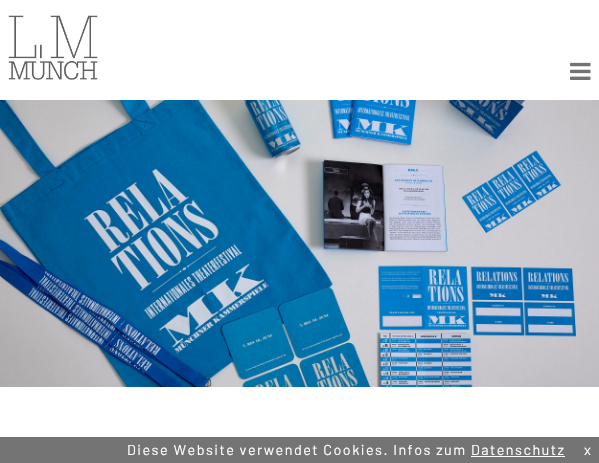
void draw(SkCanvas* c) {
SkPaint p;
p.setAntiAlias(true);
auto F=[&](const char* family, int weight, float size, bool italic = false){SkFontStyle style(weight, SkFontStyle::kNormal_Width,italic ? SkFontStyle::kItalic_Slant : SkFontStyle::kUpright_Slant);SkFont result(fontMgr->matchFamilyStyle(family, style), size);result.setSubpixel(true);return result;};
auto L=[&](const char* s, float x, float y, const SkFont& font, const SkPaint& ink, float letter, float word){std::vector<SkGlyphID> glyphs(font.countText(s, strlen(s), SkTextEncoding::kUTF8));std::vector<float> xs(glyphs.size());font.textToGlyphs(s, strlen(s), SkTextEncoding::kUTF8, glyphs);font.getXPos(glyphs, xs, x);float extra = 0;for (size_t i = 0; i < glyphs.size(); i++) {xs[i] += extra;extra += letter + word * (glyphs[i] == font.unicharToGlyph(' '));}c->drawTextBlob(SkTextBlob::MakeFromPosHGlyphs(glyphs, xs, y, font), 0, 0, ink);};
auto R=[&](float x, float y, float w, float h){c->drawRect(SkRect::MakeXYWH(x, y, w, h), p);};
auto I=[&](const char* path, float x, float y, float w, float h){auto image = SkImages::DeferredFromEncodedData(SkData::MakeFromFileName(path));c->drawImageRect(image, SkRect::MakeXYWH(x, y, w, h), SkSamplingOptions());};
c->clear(0xffffffff);
I("1.png",8,15,90,65);
I("2.png",570,62,21,18);
I("3.png",0,100,599,287);
p.setColor(0xff747474);
R(0,437,599,26);
auto f1 = F("Barlow",400,14.4);
p.setColor(0xffffffff);
L("Diese Website verwendet Cookies. Infos zum Datenschutz",127,455,f1,p,1.45,0);
L("x",584,455,f1,p,1.45,0);
R(471,456,94,1);
}
